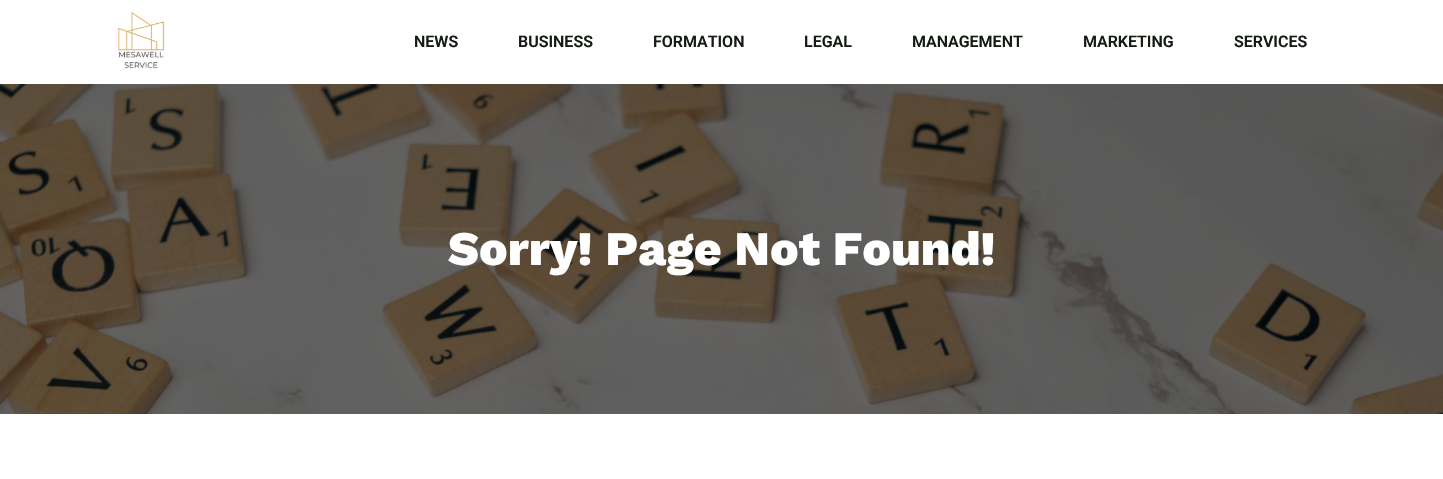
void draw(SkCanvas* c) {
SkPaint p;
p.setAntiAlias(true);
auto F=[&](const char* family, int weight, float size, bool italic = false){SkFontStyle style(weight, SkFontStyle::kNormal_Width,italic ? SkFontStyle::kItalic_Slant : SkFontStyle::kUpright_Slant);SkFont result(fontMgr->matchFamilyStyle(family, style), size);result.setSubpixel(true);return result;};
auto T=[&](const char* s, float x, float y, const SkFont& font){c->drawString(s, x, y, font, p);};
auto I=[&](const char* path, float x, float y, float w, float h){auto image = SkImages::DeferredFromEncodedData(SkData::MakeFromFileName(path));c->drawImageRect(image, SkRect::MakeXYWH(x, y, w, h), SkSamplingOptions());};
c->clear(0xffffffff);
I("1.png",117,12,48,57);
auto f1 = F("Roboto",600,16);
p.setColor(0xff141b13);
T("NEWS",414,47,f1);
T("BUSINESS",518,47,f1);
T("FORMATION",653,47,f1);
T("LEGAL",804,47,f1);
T("MANAGEMENT",912,47,f1);
T("MARKETING",1083,47,f1);
T("SERVICES",1234,47,f1);
I("2.png",0,84,1443,330);
auto f2 = F("Work Sans",800,48);
p.setColor(0xffffffff);
T("Sorry! Page Not Found!",448,265,f2);
}
